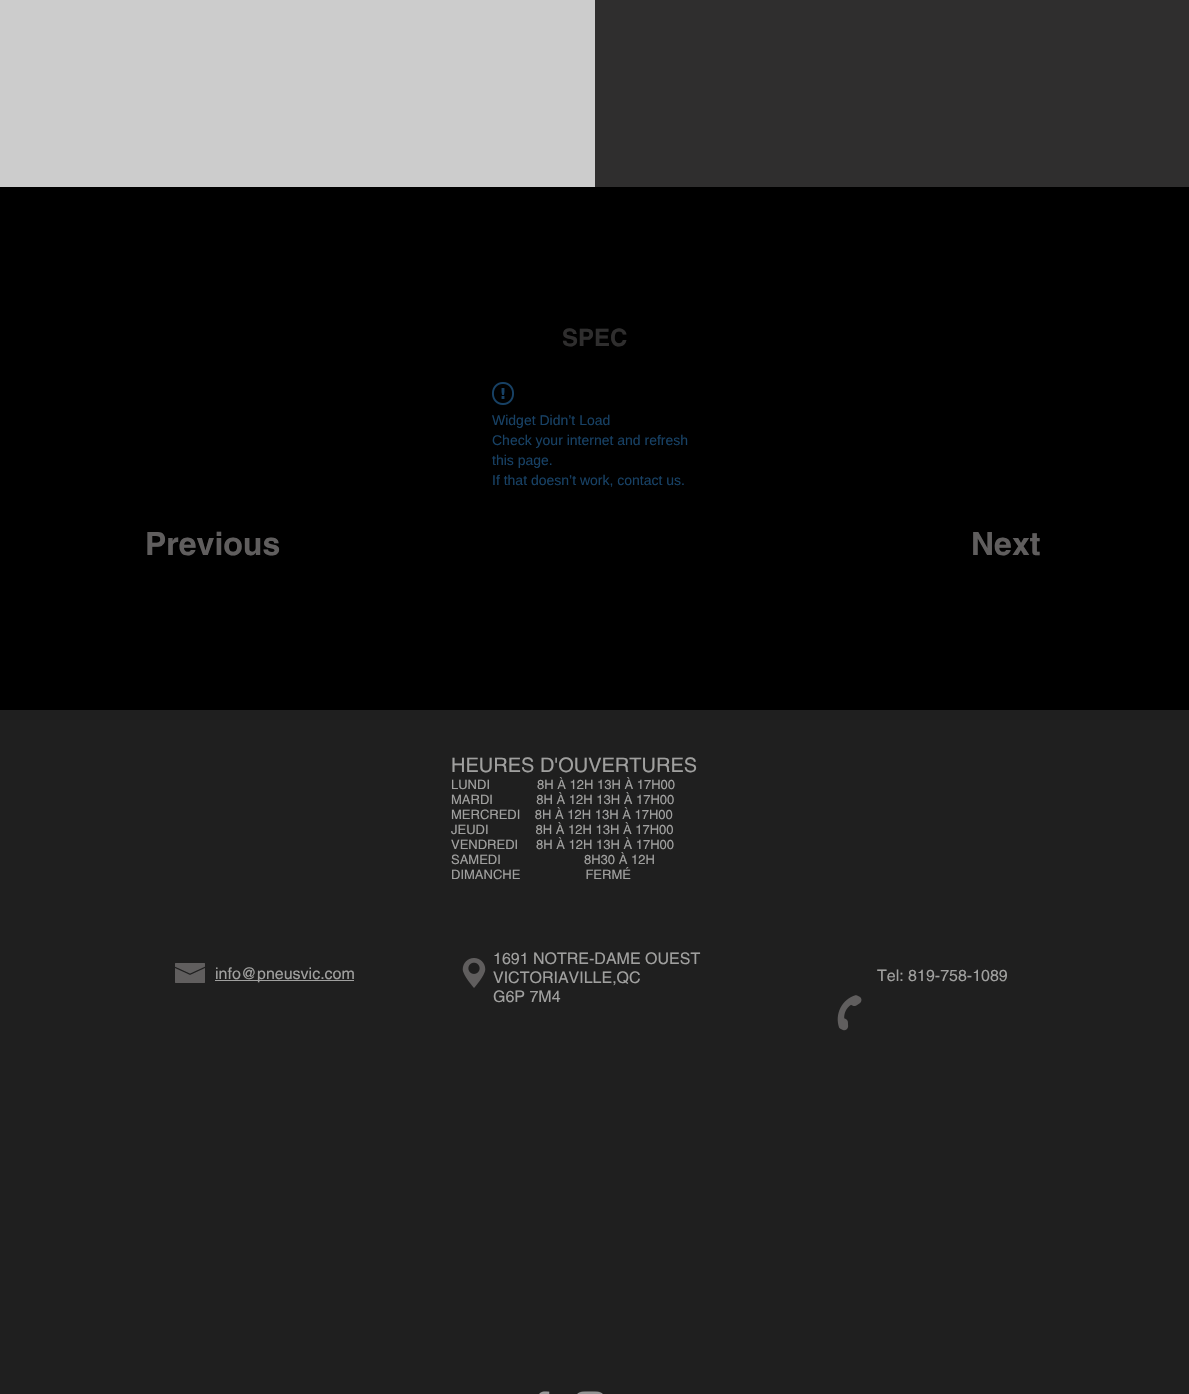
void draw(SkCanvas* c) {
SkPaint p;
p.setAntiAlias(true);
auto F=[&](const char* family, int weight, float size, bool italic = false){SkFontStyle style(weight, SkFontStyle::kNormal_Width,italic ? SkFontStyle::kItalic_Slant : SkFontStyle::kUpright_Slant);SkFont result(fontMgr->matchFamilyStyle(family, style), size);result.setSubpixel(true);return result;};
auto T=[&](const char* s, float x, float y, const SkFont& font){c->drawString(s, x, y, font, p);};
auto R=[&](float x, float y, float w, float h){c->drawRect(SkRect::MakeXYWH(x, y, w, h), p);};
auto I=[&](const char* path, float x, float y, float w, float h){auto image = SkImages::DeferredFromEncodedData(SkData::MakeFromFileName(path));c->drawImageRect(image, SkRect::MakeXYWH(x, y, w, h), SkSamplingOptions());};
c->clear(0xff000000);
p.setColor(0xffcccccc);
R(0,0,595,187);
p.setColor(0xff2f2e2e);
R(595,0,594,187);
auto f1 = F("helvetica",700,24);
T("SPEC",562,346,f1);
I("1.png",492,382,22,23);
auto f2 = F("Liberation Sans",400,14);
p.setColor(0xff174165);
T("Widget Didn’t Load",492,425,f2);
T("Check your internet and refresh",492,445,f2);
T("this page.",492,465,f2);
T("If that doesn’t work, contact us.",492,485,f2);
auto f3 = F("helvetica",700,32);
p.setColor(0xff605e5e);
T("Previous",145,555,f3);
T("Next",971,555,f3);
p.setColor(0xff1f1f1f);
R(0,710,1189,684);
auto f4 = F("helvetica",400,20);
p.setColor(0xffa0a09f);
T("HEURES D'OUVERTURES",451,772,f4);
auto f5 = F("helvetica",400,13);
T("LUNDI             8H À 12H 13H À 17H00",451,789,f5);
T("MARDI            8H À 12H 13H À 17H00",451,804,f5);
T("MERCREDI    8H À 12H 13H À 17H00",451,819,f5);
T("JEUDI             8H À 12H 13H À 17H00",451,834,f5);
T("VENDREDI",451,849,f5);
T("8H À 12H 13H À 17H00",536,849,f5);
T("SAMEDI                       8H30 À 12H",451,864,f5);
T("DIMANCHE                  FERMÉ",451,879,f5);
I("2.png",175,963,30,20);
R(215,980,139,1);
auto f6 = F("helvetica",400,16);
T("info@pneusvic.com",215,979,f6);
I("3.png",462,958,24,30);
T("1691 NOTRE-DAME OUEST",493,964,f6);
T("VICTORIAVILLE,QC",493,983,f6);
T("G6P 7M4",493,1002,f6);
T("Tel: 819-758-1089",877,981,f6);
I("4.png",837,995,25,36);
I("5.png",539,1391,11,3);
I("6.png",577,1391,26,3);
}
